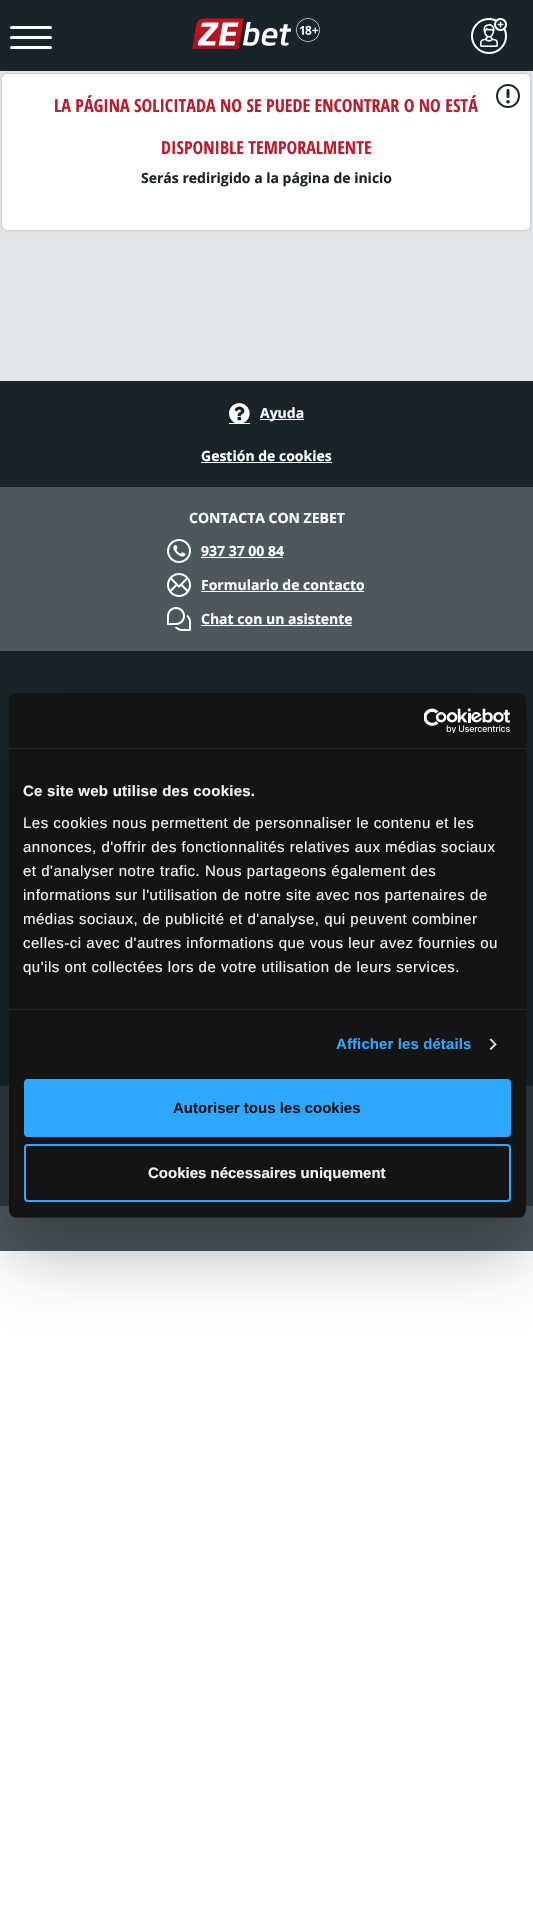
void draw(SkCanvas* c) {
SkPaint p;
p.setAntiAlias(true);
auto F=[&](const char* family, int weight, float size, bool italic = false){SkFontStyle style(weight, SkFontStyle::kNormal_Width,italic ? SkFontStyle::kItalic_Slant : SkFontStyle::kUpright_Slant);SkFont result(fontMgr->matchFamilyStyle(family, style), size);result.setSubpixel(true);return result;};
auto T=[&](const char* s, float x, float y, const SkFont& font){c->drawString(s, x, y, font, p);};
auto L=[&](const char* s, float x, float y, const SkFont& font, const SkPaint& ink, float letter, float word){std::vector<SkGlyphID> glyphs(font.countText(s, strlen(s), SkTextEncoding::kUTF8));std::vector<float> xs(glyphs.size());font.textToGlyphs(s, strlen(s), SkTextEncoding::kUTF8, glyphs);font.getXPos(glyphs, xs, x);float extra = 0;for (size_t i = 0; i < glyphs.size(); i++) {xs[i] += extra;extra += letter + word * (glyphs[i] == font.unicharToGlyph(' '));}c->drawTextBlob(SkTextBlob::MakeFromPosHGlyphs(glyphs, xs, y, font), 0, 0, ink);};
auto R=[&](float x, float y, float w, float h){c->drawRect(SkRect::MakeXYWH(x, y, w, h), p);};
auto Q=[&](float x, float y, float w, float h, float radius){c->drawRoundRect(SkRect::MakeXYWH(x, y, w, h), radius, radius, p);};
auto I=[&](const char* path, float x, float y, float w, float h){auto image = SkImages::DeferredFromEncodedData(SkData::MakeFromFileName(path));c->drawImageRect(image, SkRect::MakeXYWH(x, y, w, h), SkSamplingOptions());};
auto P=[&](const char* data, bool evenOdd = false){SkPath result = *SkParsePath::FromSVGString(data);if (evenOdd) result.setFillType(SkPathFillType::kEvenOdd);return result;};
c->clear(0xffffffff);
p.setColor(0xff4d585d);
R(0,1206,533,45);
p.setColor(0xffe3e6e8);
R(0,71,533,310);
p.setColor(0x40000000);
p.setMaskFilter(SkMaskFilter::MakeBlur(kNormal_SkBlurStyle, 1.5));
c->drawRoundRect(SkRect::MakeXYWH(2,74,528,156),5,5,p);
p.setMaskFilter(nullptr);
p.setColor(0xff18242a);
R(0,0,533,71);
p.setColor(0xffffffff);
Q(10,26,42,3,1.5);
Q(10,36,42,3,1.5);
Q(10,46,42,3,1.5);
I("1.png",192,18,100,31);
I("2.png",296,18,24,24);
I("3.png",471,18,36,36);
Q(2,74,528,156,5);
I("4.png",496,84,24,24);
auto f1 = F("Open Sans Condensed",700,18);
p.setColor(0xffbb1d2c);
T("LA PÁGINA SOLICITADA NO SE PUEDE ENCONTRAR O NO ESTÁ",54,112,f1);
T("DISPONIBLE TEMPORALMENTE",161,154,f1);
auto f2 = F("Open Sans",700,14);
p.setColor(0xff18242a);
T("Serás redirigido a la página de inicio",141,183,f2);
R(0,381,533,705);
I("5.png",229,403,21,20);
p.setColor(0xffffffff);
R(229,423,21,1);
R(260,419,44,1);
T("Ayuda",260,418,f2);
T("Gestión de cookies",201,461,f2);
R(201,462,131,1);
p.setColor(0xff4d585d);
R(0,487,533,164);
p.setColor(0xffffffff);
T("CONTACTA CON ZEBET",189,523,f2);
I("6.png",167,539,24,24);
T("937 37 00 84",201,556,f2);
R(201,557,82,1);
I("7.png",167,573,24,24);
T("Formulario de contacto",201,590,f2);
R(201,591,163,1);
I("8.png",167,607,24,24);
T("Chat con un asistente",201,624,f2);
R(201,625,151,1);
p.setColor(0xff2f3a3f);
R(0,1086,533,120);
p.setColor(0x4d000000);
p.setMaskFilter(SkMaskFilter::MakeBlur(kNormal_SkBlurStyle, 34));
c->drawRoundRect(SkRect::MakeXYWH(9,725,517,525),8,8,p);
p.setMaskFilter(nullptr);
p.setColor(0xff141414);
Q(9,693,517,525,8);
p.setColor(0xff272727);
R(9,748,517,1);
I("9.png",424,708,86,25);
R(9,1009,517,1);
auto f3 = F("Liberation Sans",700,15);
p.setColor(0xfff2f2f2);
L("Ce site web utilise des cookies.",23,796,f3,p,.25,0);
auto f4 = F("Liberation Sans",400,15);
L("Les cookies nous permettent de personnaliser le contenu et les",23,828,f4,p,.5,0);
L("annonces, d'offrir des fonctionnalités relatives aux médias sociaux",23,852,f4,p,.5,0);
L("et d'analyser notre trafic. Nous partageons également des",23,876,f4,p,.5,0);
L("informations sur l'utilisation de notre site avec nos partenaires de",23,900,f4,p,.5,0);
L("médias sociaux, de publicité et d'analyse, qui peuvent combiner",23,924,f4,p,.5,0);
L("celles-ci avec d'autres informations que vous leur avez fournies ou",23,948,f4,p,.5,0);
L("qu'ils ont collectées lors de votre utilisation de leurs services.",23,972,f4,p,.5,0);
p.setColor(0xff2ea7ff);
L("Afficher les détails",336,1049,f3,p,.1,0);
p.setColor(0xfff2f2f2);
c->drawPath(P("M491 1038.5l5.5 6l-1 1l-6-6z"),p);
c->drawPath(P("M495.5 1043l1 1.5l-5.5 5.5l-1.5-1z"),p);
c->save();
c->clipPath(P("M17 693h501c4.5 0 8 3.5 8 8v509c0 4.5-3.5 8-8 8h-501c-4.5 0-8-3.5-8-8v-509c0-4.5 3.5-8 8-8z"),true);
p.setColor(0x14ffffff);
R(9,1217,517,1);
c->restore();
p.setColor(0xff2ea7ff);
c->drawRoundRect(SkRect::MakeXYWH(25,1080,485,56),3,3,p);
p.setStroke(true);
p.setStrokeWidth(2);
c->drawRoundRect(SkRect::MakeXYWH(25,1080,485,56),3,3,p);
p.setStroke(false);
p.setColor(0xff141414);
T("Autoriser tous les cookies",173,1113,f3);
p.setStroke(true);
p.setColor(0xff2ea7ff);
c->drawRoundRect(SkRect::MakeXYWH(25,1145,485,56),3,3,p);
p.setStroke(false);
p.setColor(0xfff2f2f2);
T("Cookies nécessaires uniquement",148,1178,f3);
}
